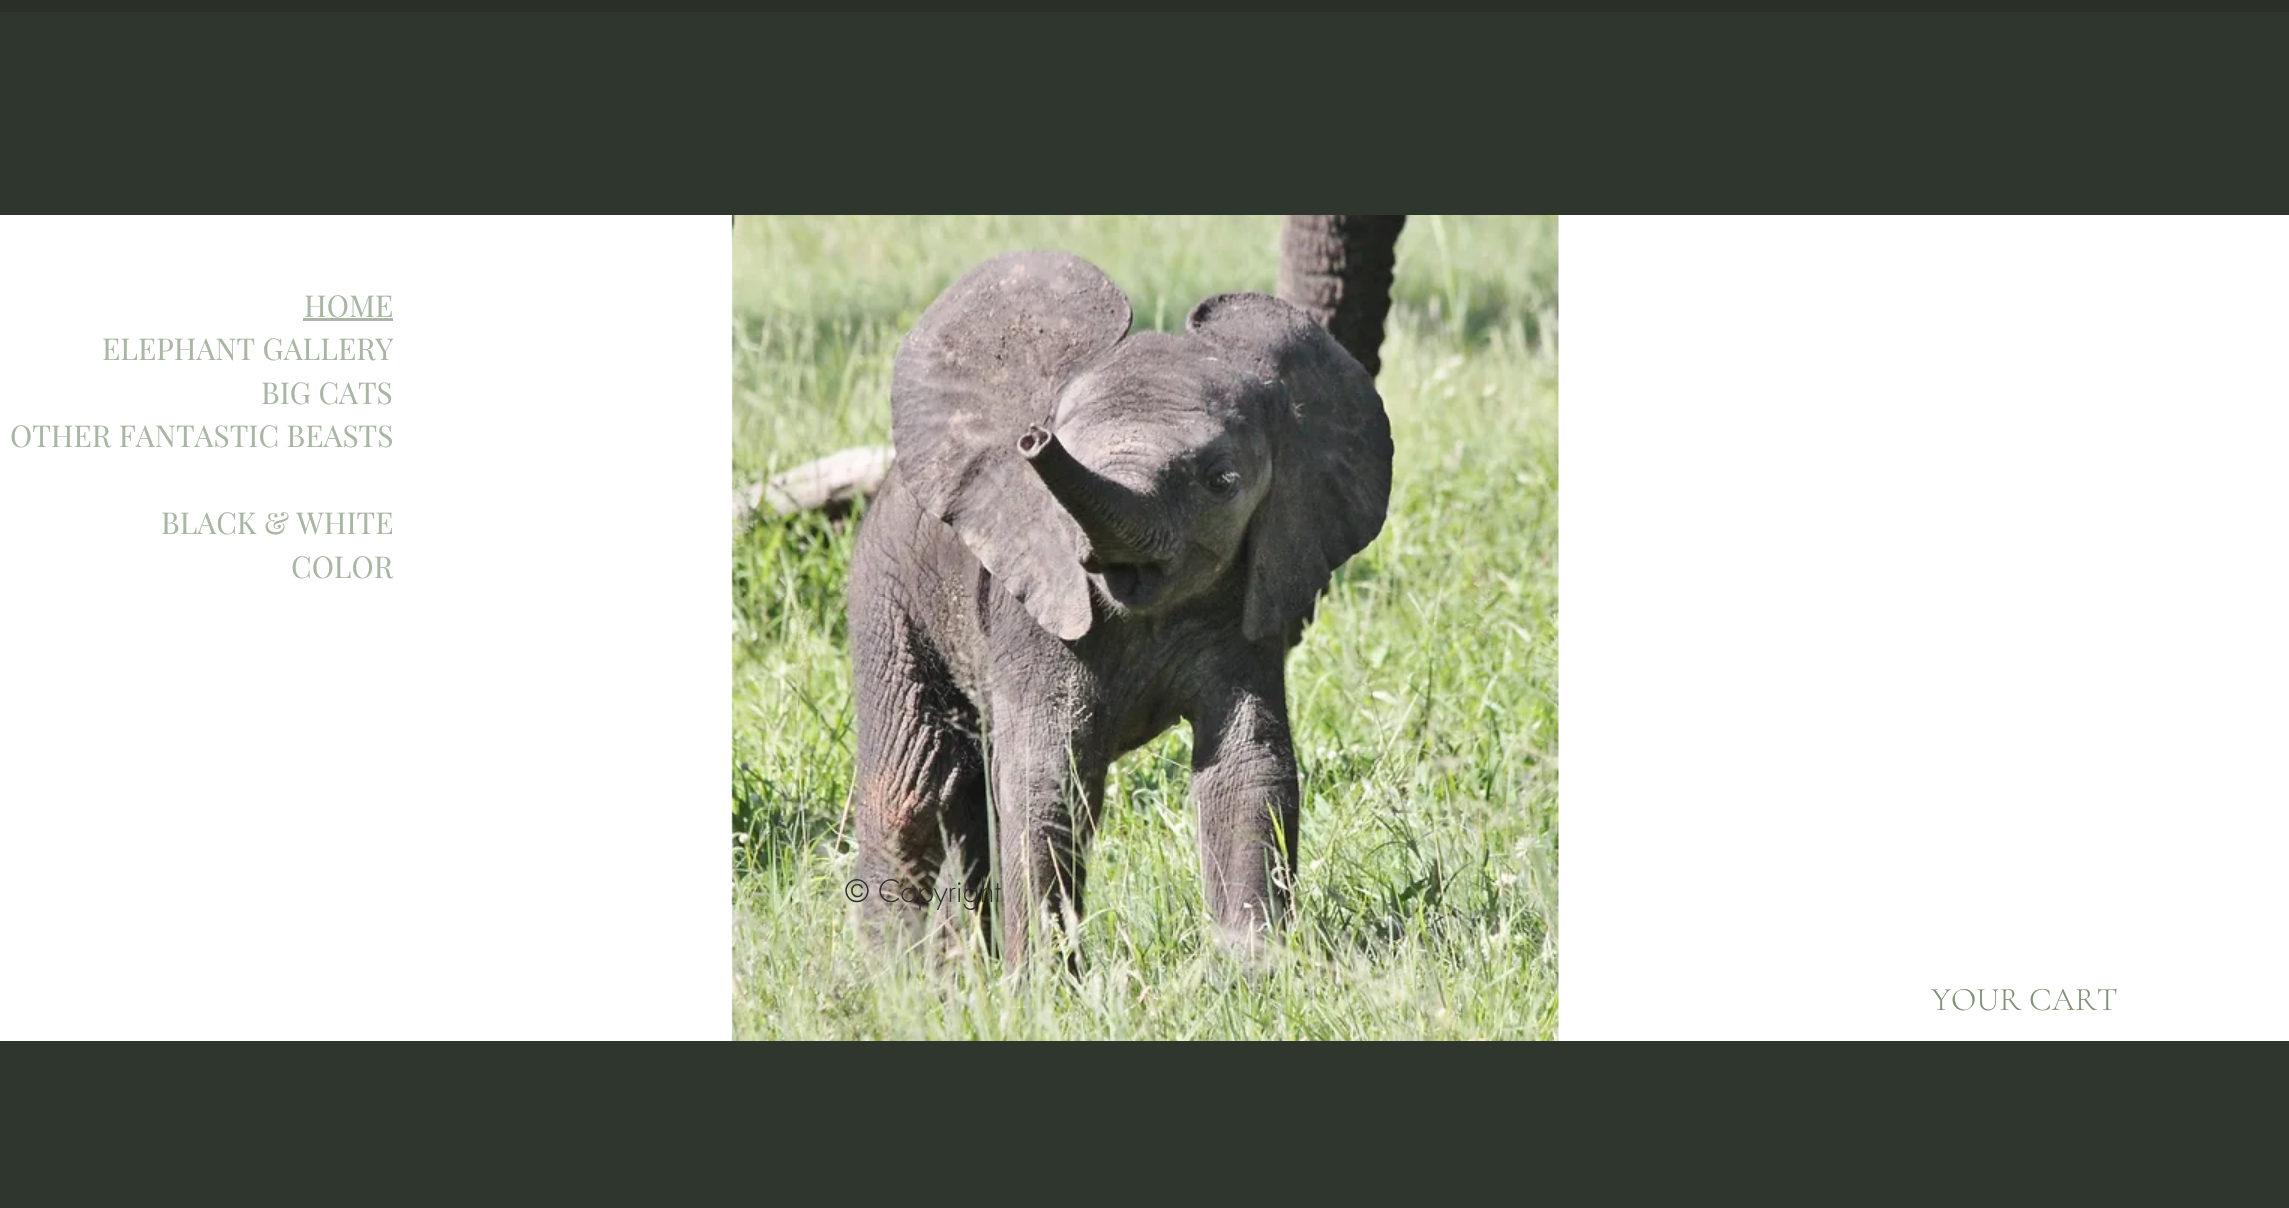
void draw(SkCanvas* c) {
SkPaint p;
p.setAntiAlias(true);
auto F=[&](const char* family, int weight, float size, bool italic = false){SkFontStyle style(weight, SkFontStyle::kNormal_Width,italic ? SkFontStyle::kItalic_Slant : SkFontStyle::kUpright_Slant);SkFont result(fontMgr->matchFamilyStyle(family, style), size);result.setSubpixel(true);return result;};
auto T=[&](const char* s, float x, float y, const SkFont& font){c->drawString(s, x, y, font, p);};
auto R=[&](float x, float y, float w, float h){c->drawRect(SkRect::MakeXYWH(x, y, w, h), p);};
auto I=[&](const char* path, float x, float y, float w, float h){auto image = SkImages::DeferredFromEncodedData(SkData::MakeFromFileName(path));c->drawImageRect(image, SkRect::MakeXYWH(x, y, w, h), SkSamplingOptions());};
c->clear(0xff2f362e);
p.setColor(0xff2a3027);
R(0,0,2289,12);
p.setColor(0xffffffff);
R(0,215,2289,826);
I("1.png",731,215,828,826);
auto f1 = F("Playfair Display",400,30);
p.setColor(0xffa9b6a4);
T("HOME",304,317,f1);
R(303,318,90,3);
T("ELEPHANT GALLERY",102,360,f1);
T("BIG CATS",261,404,f1);
T("OTHER FANTASTIC BEASTS",10,447,f1);
T("BLACK & WHITE",161,534,f1);
T("COLOR",291,578,f1);
auto f2 = F("futura",300,30);
p.setColor(0xff303030);
T("© Copyright",845,902,f2);
auto f3 = F("Cormorant Garamond",300,33);
p.setColor(0xff7d9174);
T("YOUR CART",1931,1010,f3);
}
